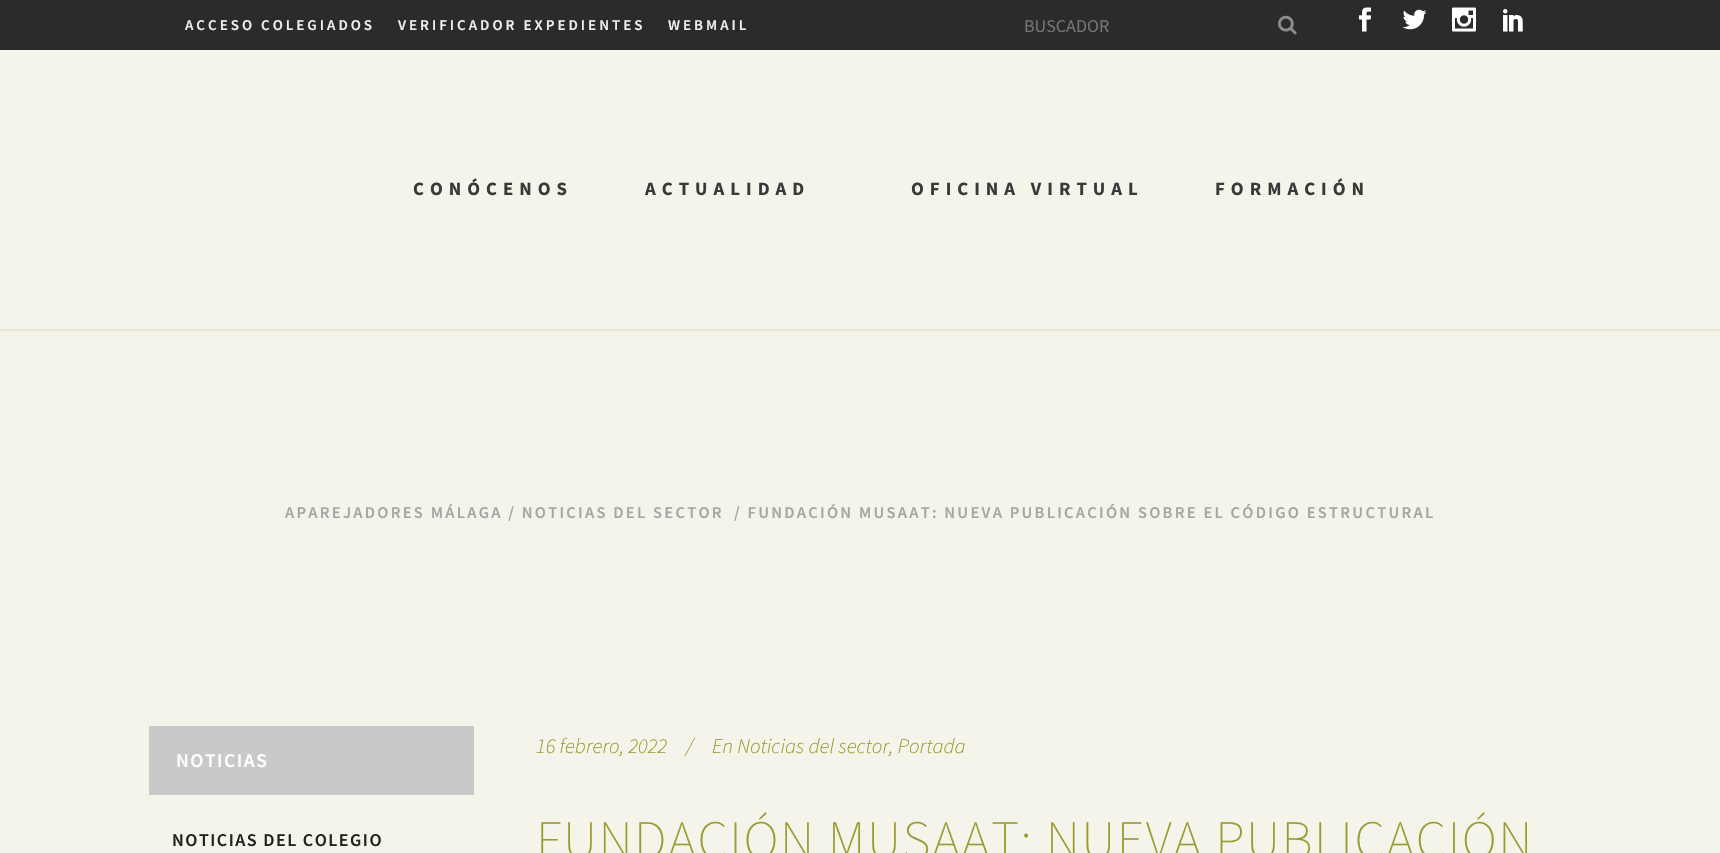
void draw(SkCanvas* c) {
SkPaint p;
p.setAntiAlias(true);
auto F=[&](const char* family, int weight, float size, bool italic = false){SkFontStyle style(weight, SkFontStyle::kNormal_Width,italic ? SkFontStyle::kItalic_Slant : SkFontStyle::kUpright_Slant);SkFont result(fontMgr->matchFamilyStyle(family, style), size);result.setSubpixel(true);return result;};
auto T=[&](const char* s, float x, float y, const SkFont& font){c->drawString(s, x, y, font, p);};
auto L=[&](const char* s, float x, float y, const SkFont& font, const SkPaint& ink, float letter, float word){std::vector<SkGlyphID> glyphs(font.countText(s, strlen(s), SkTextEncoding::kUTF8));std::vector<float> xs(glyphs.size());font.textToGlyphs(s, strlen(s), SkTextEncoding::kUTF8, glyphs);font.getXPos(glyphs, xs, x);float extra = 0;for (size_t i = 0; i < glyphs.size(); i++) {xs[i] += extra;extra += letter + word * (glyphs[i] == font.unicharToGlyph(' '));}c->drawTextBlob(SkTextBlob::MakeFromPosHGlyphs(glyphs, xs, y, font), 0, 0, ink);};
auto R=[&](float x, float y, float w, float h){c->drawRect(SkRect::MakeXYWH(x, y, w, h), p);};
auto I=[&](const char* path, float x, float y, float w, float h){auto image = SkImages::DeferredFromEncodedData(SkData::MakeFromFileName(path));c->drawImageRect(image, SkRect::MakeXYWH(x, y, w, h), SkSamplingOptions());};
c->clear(0xfff5f4ea);
p.setColor(0xff2b2b2b);
R(0,0,1720,50);
auto f1 = F("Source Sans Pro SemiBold",600,15);
p.setColor(0xffefefef);
L("ACCESO COLEGIADOS",185,30,f1,p,3,0);
L("VERIFICADOR EXPEDIENTES",398,30,f1,p,3,0);
L("WEBMAIL",668,30,f1,p,3,0);
auto f2 = F("Source Sans Pro",400,18);
p.setColor(0xff757575);
T("BUSCADOR",1024,32,f2);
I("1.png",1278,15,19,20);
I("2.png",1359,7,13,25);
I("3.png",1402,9,25,21);
I("4.png",1452,7,24,25);
I("5.png",1503,9,20,23);
p.setColor(0xffe8e6d4);
R(0,329,1720,2);
auto f3 = F("Source Sans Pro",700,18.75);
p.setColor(0xff393939);
L("CONÓCENOS",413,195,f3,p,6,0);
L("ACTUALIDAD",645,195,f3,p,6,0);
L("OFICINA VIRTUAL",911,195,f3,p,6,0);
L("FORMACIÓN",1215,195,f3,p,6,0);
auto f4 = F("Source Sans Pro SemiBold",600,16.5);
p.setColor(0xffa6a6a6);
L("APAREJADORES MÁLAGA / NOTICIAS DEL SECTOR",285,518,f4,p,2.25,0);
L("/ FUNDACIÓN MUSAAT: NUEVA PUBLICACIÓN SOBRE EL CÓDIGO ESTRUCTURAL",734,518,f4,p,2.25,0);
p.setColor(0xffc9c9c9);
R(149,726,325,69);
auto f5 = F("Source Sans Pro SemiBold",600,19.5);
p.setColor(0xffffffff);
L("NOTICIAS",176,767,f5,p,1.5,0);
auto f6 = F("Source Sans Pro SemiBold",600,18);
p.setColor(0xff222222);
L("NOTICIAS DEL COLEGIO",172,846,f6,p,1.5,0);
auto f7 = F("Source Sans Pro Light",300,21,true);
p.setColor(0xff999b30);
T("16 febrero, 2022",536,753,f7);
T("/",686,753,f7);
T("En Noticias del sector, Portada",712,753,f7);
auto f8 = F("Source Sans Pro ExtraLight",200,54);
L("FUNDACIÓN MUSAAT: NUEVA PUBLICACIÓN",536,858,f8,p,1.5,0);
}
